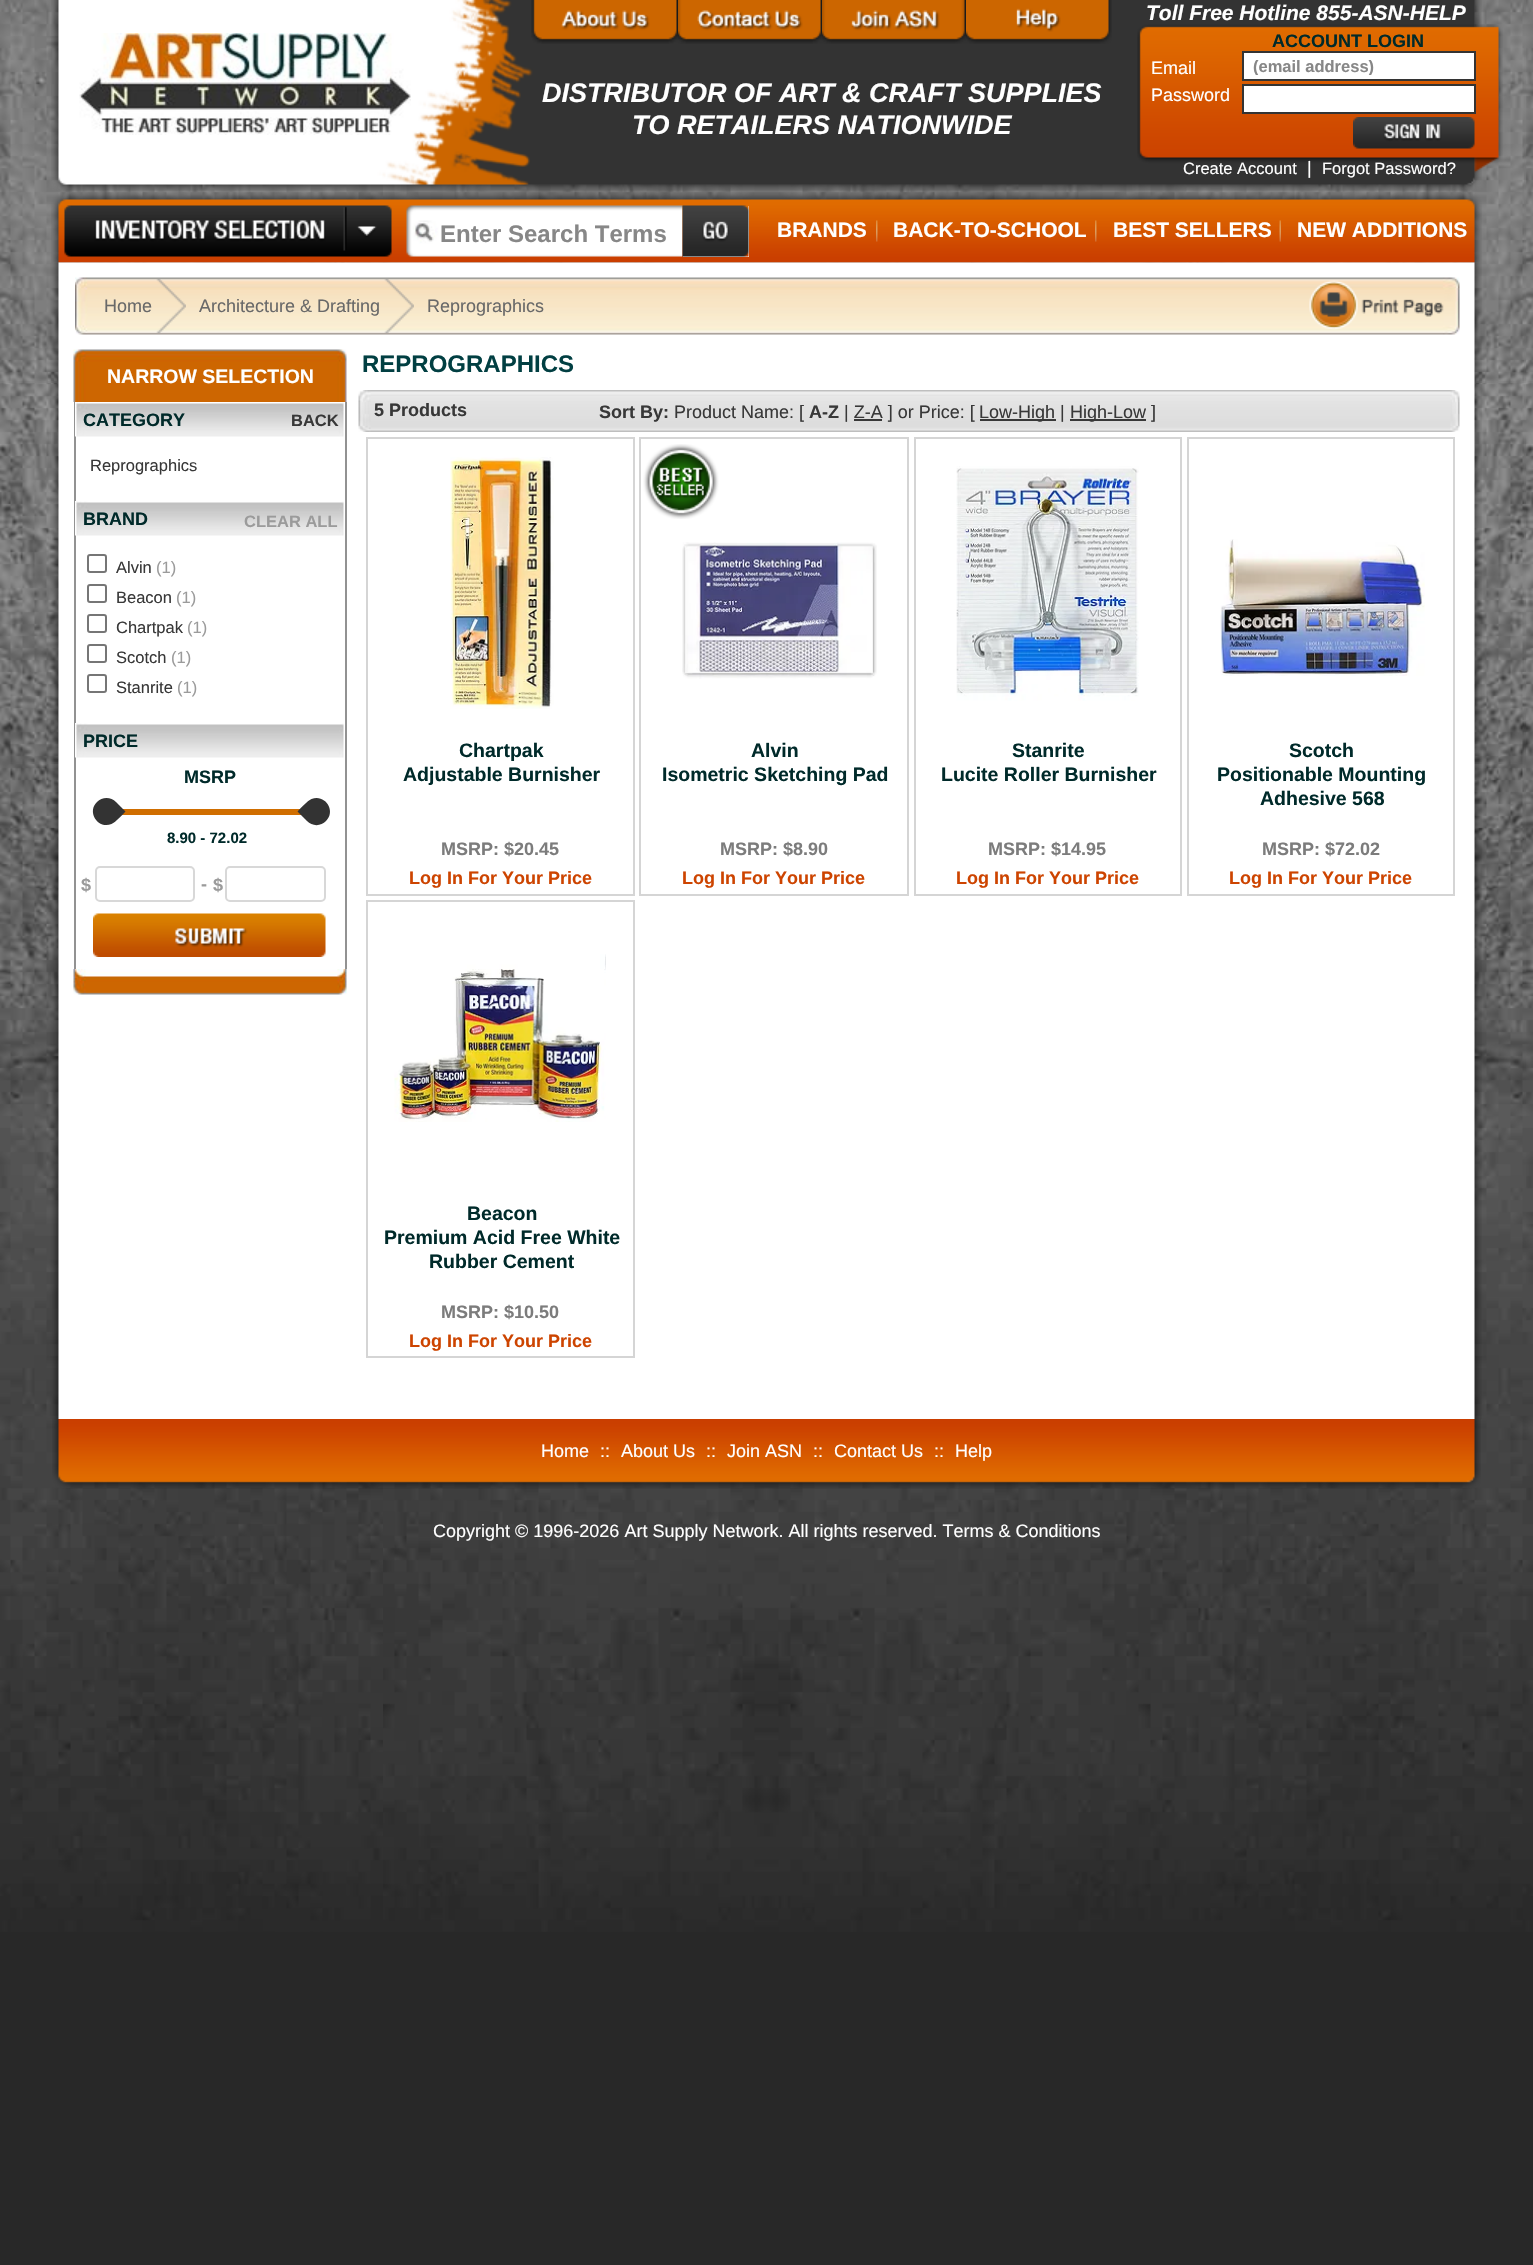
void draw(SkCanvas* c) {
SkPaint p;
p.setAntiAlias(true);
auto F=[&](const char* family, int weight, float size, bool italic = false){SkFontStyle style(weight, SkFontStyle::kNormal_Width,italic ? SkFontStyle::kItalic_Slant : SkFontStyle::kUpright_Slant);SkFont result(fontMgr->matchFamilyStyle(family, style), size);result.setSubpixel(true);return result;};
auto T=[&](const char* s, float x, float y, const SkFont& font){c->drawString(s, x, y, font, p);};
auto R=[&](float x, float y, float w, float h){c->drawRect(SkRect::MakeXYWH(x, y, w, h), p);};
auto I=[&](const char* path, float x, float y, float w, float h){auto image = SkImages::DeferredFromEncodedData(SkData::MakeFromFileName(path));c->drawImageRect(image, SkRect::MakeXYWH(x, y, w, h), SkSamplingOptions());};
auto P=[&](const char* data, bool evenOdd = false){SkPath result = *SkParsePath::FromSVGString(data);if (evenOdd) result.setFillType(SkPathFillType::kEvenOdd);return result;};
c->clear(0xff282828);
I("1.png",0,1541,1533,391);
I("2.png",0,0,1533,1541);
I("3.png",51,0,1431,191);
I("4.png",79,33,332,102);
I("5.png",531,0,147,44);
I("6.png",678,0,144,44);
I("7.png",822,0,144,44);
I("8.png",966,0,146,44);
auto f1 = F("Liberation Sans",700,27,true);
p.setColor(0xffffffff);
T("DISTRIBUTOR OF ART & CRAFT SUPPLIES",542,102,f1);
T("TO RETAILERS NATIONWIDE",632,134,f1);
auto f2 = F("Liberation Sans",700,21,true);
T("Toll Free Hotline 855-ASN-HELP",1146,20,f2);
I("9.png",1137,24,366,149);
auto f3 = F("Liberation Sans",700,18);
p.setColor(0xff002a2a);
T("ACCOUNT LOGIN",1272,47,f3);
auto f4 = F("Liberation Sans",400,18);
p.setColor(0xffffffff);
T("Email",1151,74,f4);
c->drawRect(SkRect::MakeXYWH(1243,52,232,28),p);
p.setStroke(true);
p.setStrokeWidth(2);
p.setColor(0xff333333);
c->drawRect(SkRect::MakeXYWH(1243,52,232,28),p);
c->save();
c->clipRect(SkRect::MakeXYWH(1253,57,219,18));
auto f5 = F("Liberation Sans",700,16.5);
p.setStroke(false);
p.setColor(0xff878787);
T("(email address)",1253,72,f5);
c->restore();
p.setColor(0xffffffff);
T("Password",1151,101,f4);
c->drawRect(SkRect::MakeXYWH(1243,85,232,28),p);
p.setStroke(true);
p.setColor(0xff333333);
c->drawRect(SkRect::MakeXYWH(1243,85,232,28),p);
I("10.png",1353,117,122,32);
auto f6 = F("Liberation Sans",400,16.5);
p.setStroke(false);
p.setColor(0xffffffff);
T("Create Account",1183,174,f6);
T("|",1307,174,f4);
T("Forgot Password?",1322,174,f6);
I("11.png",51,192,1431,71);
I("12.png",64,205,328,52);
I("13.png",406,205,277,52);
auto f7 = F("Liberation Sans",700,24);
p.setColor(0xff878787);
T("Enter Search Terms",440,242,f7);
p.setColor(0xffefefef);
R(683,206,66,51);
I("14.png",682,205,67,52);
auto f8 = F("Liberation Sans",700,21);
p.setColor(0xffffffff);
T("BRANDS",777,237,f8);
I("15.png",876,220,2,22);
T("BACK-TO-SCHOOL",893,237,f8);
I("15.png",1095,220,2,22);
T("BEST SELLERS",1113,237,f8);
I("16.png",1279,220,2,22);
T("NEW ADDITIONS",1297,237,f8);
I("17.png",50,262,1432,1157);
I("18.png",75,277,1385,58);
I("19.png",156,279,30,54);
p.setColor(0xff696969);
T("Home",104,312,f4);
I("20.png",384,279,30,54);
T("Architecture & Drafting",199,312,f4);
T("Reprographics",427,312,f4);
I("21.png",1309,280,135,50);
I("22.png",73,349,274,53);
auto f9 = F("Liberation Sans",700,19.5);
p.setColor(0xffffffff);
T("NARROW SELECTION",107,383,f9);
p.setColor(0xff929292);
R(345,402,2,567);
R(74,402,2,567);
I("23.png",75,402,269,35);
p.setColor(0xff002a2a);
T("CATEGORY",83,426,f3);
p.setColor(0xff383838);
T("BACK",291,426,f5);
T("Reprographics",90,471,f6);
I("23.png",75,501,269,35);
p.setColor(0xff002a2a);
T("BRAND",83,525,f3);
p.setColor(0xff9b9b9b);
T("CLEAR ALL",244,527,f5);
p.setStroke(true);
p.setColor(0xff767676);
c->drawRoundRect(SkRect::MakeXYWH(88,555,18,17),2,2,p);
p.setStroke(false);
p.setColor(0xff383838);
T("Alvin",116,573,f6);
p.setColor(0xff9b9b9b);
T("(1)",156,573,f6);
p.setStroke(true);
p.setColor(0xff767676);
c->drawRoundRect(SkRect::MakeXYWH(88,585,18,17),2,2,p);
p.setStroke(false);
p.setColor(0xff383838);
T("Beacon",116,603,f6);
p.setColor(0xff9b9b9b);
T("(1)",176,603,f6);
p.setStroke(true);
p.setColor(0xff767676);
c->drawRoundRect(SkRect::MakeXYWH(88,615,18,17),2,2,p);
p.setStroke(false);
p.setColor(0xff383838);
T("Chartpak",116,633,f6);
p.setColor(0xff9b9b9b);
T("(1)",187,633,f6);
p.setStroke(true);
p.setColor(0xff767676);
c->drawRoundRect(SkRect::MakeXYWH(88,645,18,17),2,2,p);
p.setStroke(false);
p.setColor(0xff383838);
T("Scotch",116,663,f6);
p.setColor(0xff9b9b9b);
T("(1)",171,663,f6);
p.setStroke(true);
p.setColor(0xff767676);
c->drawRoundRect(SkRect::MakeXYWH(88,675,18,17),2,2,p);
p.setStroke(false);
p.setColor(0xff383838);
T("Stanrite",116,693,f6);
p.setColor(0xff9b9b9b);
T("(1)",177,693,f6);
I("23.png",75,723,269,35);
p.setColor(0xff002a2a);
T("PRICE",83,747,f3);
T("MSRP",184,783,f3);
p.setColor(0xffd06e00);
R(122,809,179,6);
p.setColor(0xff333333);
c->drawPath(P("M97 802c5-5.5 14-5.5 19 0l9.5 9.5c-3.5 3.5-9.5 10.5-14 12.5c-13.5 5.5-25-12-14.5-22z"),p);
c->drawPath(P("M326 821c-5 5.5-14 5.5-19 0l-9.5-9.5c3.5-3.5 9.5-10.5 14-12.5c13.5-5.5 25 12 14.5 22z"),p);
auto f10 = F("Liberation Sans",700,15);
p.setColor(0xff002a2a);
T("8.90 - 72.02",167,843,f10);
p.setColor(0xff9b9b9b);
T("$",81,891,f3);
p.setStroke(true);
p.setColor(0xffd8d8d8);
c->drawRoundRect(SkRect::MakeXYWH(96,867,98,34),4,4,p);
p.setStroke(false);
p.setColor(0xff9b9b9b);
T("-",201,890,f3);
T("$",213,891,f3);
p.setStroke(true);
p.setColor(0xffd8d8d8);
c->drawRoundRect(SkRect::MakeXYWH(226,867,99,34),4,4,p);
I("24.png",93,913,233,44);
I("25.png",73,969,274,26);
p.setStroke(false);
p.setColor(0xff013f42);
T("REPROGRAPHICS",362,372,f7);
I("26.png",358,390,1102,42);
p.setColor(0xff383838);
T("5 Products",374,416,f3);
T("Sort By:",599,418,f3);
T("Product Name: [",674,418,f4);
T("A-Z",809,418,f3);
T("| Z-A ] or Price: [",844,418,f4);
R(980,419,76,2);
T("Low-High |",979,418,f4);
R(1070,419,76,2);
T("High-Low ]",1070,418,f4);
R(854,419,28,2);
p.setStroke(true);
p.setColor(0xffd5d5d5);
c->drawRect(SkRect::MakeXYWH(367,438,267,457),p);
I("27.png",450,457,104,252);
p.setStroke(false);
p.setColor(0xff002a2a);
T("Chartpak",459,757,f9);
T("Adjustable Burnisher",403,781,f9);
p.setColor(0xff7c7c7c);
T("MSRP: $20.45",441,855,f3);
p.setColor(0xffcd4400);
T("Log In For Your Price",409,884,f3);
p.setStroke(true);
p.setColor(0xffd5d5d5);
c->drawRect(SkRect::MakeXYWH(640,438,268,457),p);
I("28.png",643,444,76,75);
I("29.png",682,542,195,137);
p.setStroke(false);
p.setColor(0xff002a2a);
T("Alvin",751,757,f9);
T("Isometric Sketching Pad",662,781,f9);
p.setColor(0xff7c7c7c);
T("MSRP: $8.90",720,855,f3);
p.setColor(0xffcd4400);
T("Log In For Your Price",682,884,f3);
p.setStroke(true);
p.setColor(0xffd5d5d5);
c->drawRect(SkRect::MakeXYWH(915,438,266,457),p);
I("30.png",956,466,183,235);
p.setStroke(false);
p.setColor(0xff002a2a);
T("Stanrite",1012,757,f9);
T("Lucite Roller Burnisher",941,781,f9);
p.setColor(0xff7c7c7c);
T("MSRP: $14.95",988,855,f3);
p.setColor(0xffcd4400);
T("Log In For Your Price",956,884,f3);
p.setStroke(true);
p.setColor(0xffd5d5d5);
c->drawRect(SkRect::MakeXYWH(1188,438,266,457),p);
I("31.png",1220,539,205,137);
p.setStroke(false);
p.setColor(0xff002a2a);
T("Scotch",1289,757,f9);
T("Positionable Mounting",1217,781,f9);
T("Adhesive 568",1260,805,f9);
p.setColor(0xff7c7c7c);
T("MSRP: $72.02",1262,855,f3);
p.setColor(0xffcd4400);
T("Log In For Your Price",1229,884,f3);
p.setStroke(true);
p.setColor(0xffd5d5d5);
c->drawRect(SkRect::MakeXYWH(367,901,267,456),p);
I("32.png",394,954,212,168);
p.setStroke(false);
p.setColor(0xff002a2a);
T("Beacon",467,1220,f9);
T("Premium Acid Free White",384,1244,f9);
T("Rubber Cement",429,1268,f9);
p.setColor(0xff7c7c7c);
T("MSRP: $10.50",441,1318,f3);
p.setColor(0xffcd4400);
T("Log In For Your Price",409,1347,f3);
I("33.png",52,1419,1429,70);
p.setColor(0xffffffff);
T("Home",541,1457,f4);
T("::",600,1457,f4);
T("About Us",621,1457,f4);
T("::",706,1457,f4);
T("Join ASN",727,1457,f4);
T("::",813,1457,f4);
T("Contact Us",834,1457,f4);
T("::",934,1457,f4);
T("Help",955,1457,f4);
T("Copyright © 1996-2026 Art Supply Network. All rights reserved. Terms & Conditions",433,1537,f4);
}
